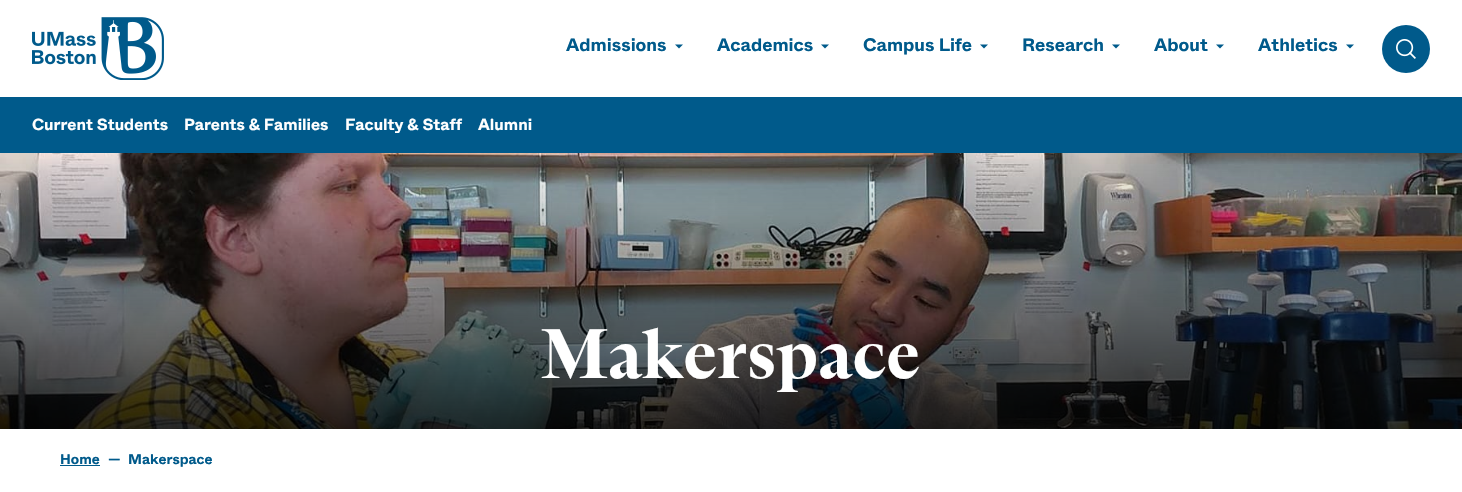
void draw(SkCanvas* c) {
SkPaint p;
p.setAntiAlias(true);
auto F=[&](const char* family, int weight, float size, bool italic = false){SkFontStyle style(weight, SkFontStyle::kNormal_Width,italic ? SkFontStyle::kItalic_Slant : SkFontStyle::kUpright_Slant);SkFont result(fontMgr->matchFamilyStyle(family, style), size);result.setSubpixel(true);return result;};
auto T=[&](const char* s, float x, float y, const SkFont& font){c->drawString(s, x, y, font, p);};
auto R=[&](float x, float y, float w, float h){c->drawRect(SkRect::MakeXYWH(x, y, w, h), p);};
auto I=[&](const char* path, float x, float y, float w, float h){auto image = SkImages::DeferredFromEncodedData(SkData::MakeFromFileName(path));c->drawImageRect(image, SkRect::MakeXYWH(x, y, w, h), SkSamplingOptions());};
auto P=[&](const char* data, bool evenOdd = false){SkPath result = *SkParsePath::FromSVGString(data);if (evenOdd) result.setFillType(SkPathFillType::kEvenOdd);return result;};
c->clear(0xffffffff);
I("1.png",32,17,132,63);
auto f1 = F("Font",700,18);
p.setColor(0xff005a8b);
T("Admissions",566,51,f1);
c->drawPath(P("M679 48.5l-4-4h8z"),p);
T("Academics",717,51,f1);
c->drawPath(P("M825 48.5l-4-4h8z"),p);
T("Campus Life",863,51,f1);
c->drawPath(P("M984 48.5l-4-4h8z"),p);
T("Research",1022,51,f1);
c->drawPath(P("M1116 48.5l-4-4h8z"),p);
T("About",1154,51,f1);
c->drawPath(P("M1220 48.5l-4-4h8z"),p);
T("Athletics",1258,51,f1);
c->drawPath(P("M1350 48.5l-4-4h8z"),p);
c->drawCircle(1406,49,24,p);
I("2.png",1396,39,20,20);
R(0,97,1462,56);
auto f2 = F("Font",700,16);
p.setColor(0xffffffff);
T("Current Students",32,130,f2);
T("Parents & Families",184,130,f2);
T("Faculty & Staff",345,130,f2);
T("Alumni",478,130,f2);
I("3.png",0,153,1462,276);
auto f3 = F("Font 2",700,70);
T("Makerspace",541,378,f3);
auto f4 = F("Font",700,14);
p.setColor(0xff005a8b);
T("Home",60,464,f4);
R(60,465,40,1);
T("—",108,464,f4);
T("Makerspace",128,464,f4);
}
